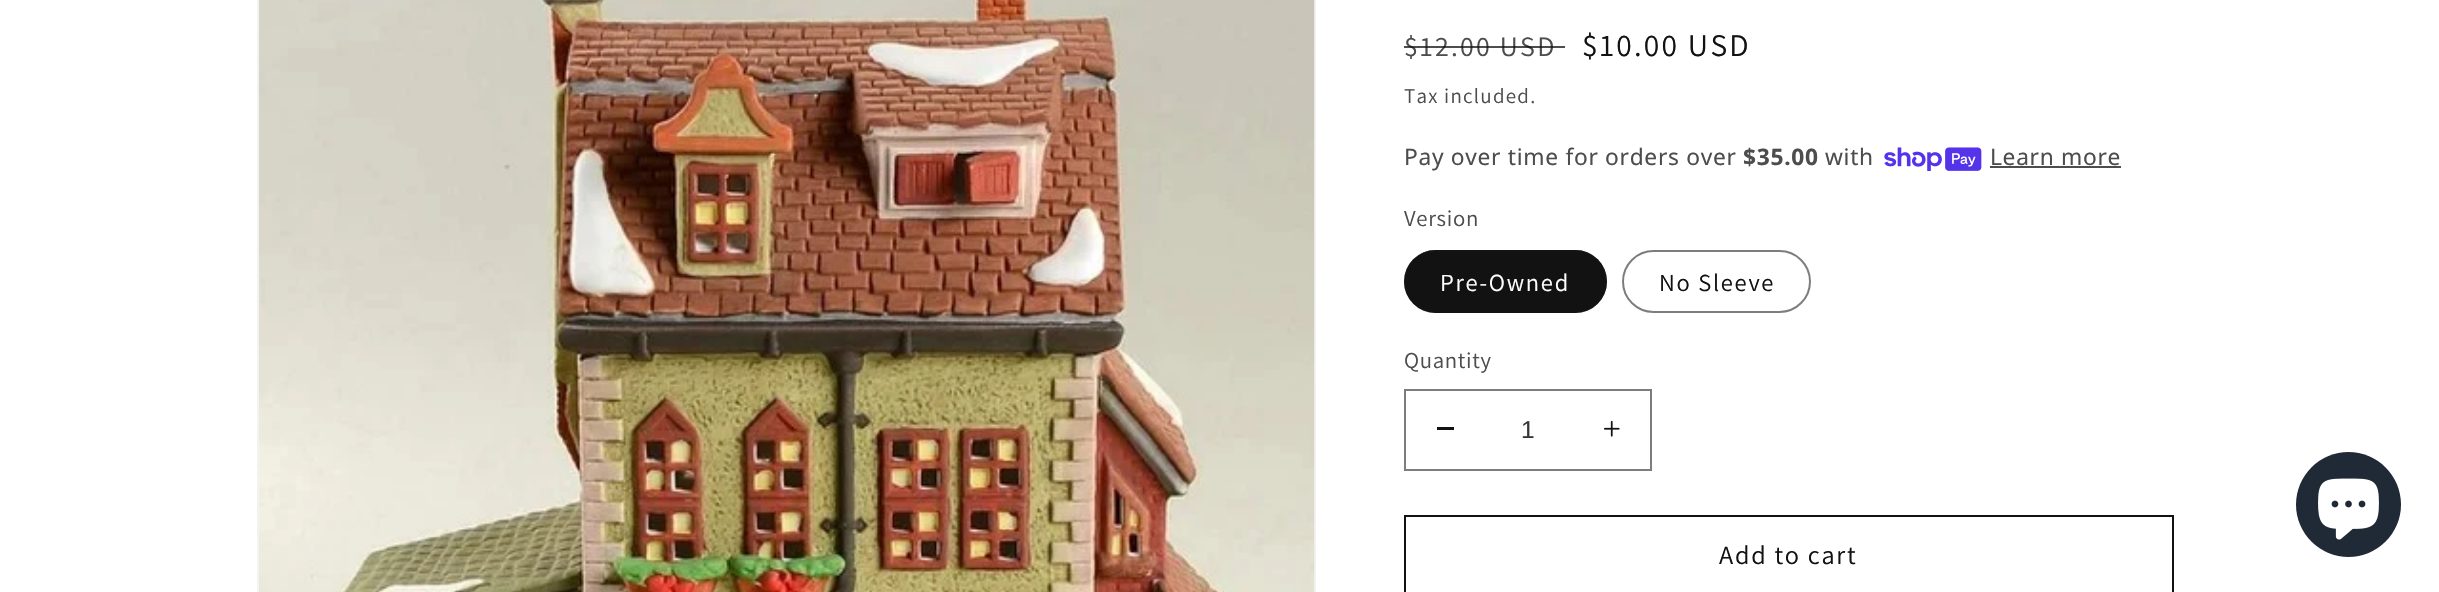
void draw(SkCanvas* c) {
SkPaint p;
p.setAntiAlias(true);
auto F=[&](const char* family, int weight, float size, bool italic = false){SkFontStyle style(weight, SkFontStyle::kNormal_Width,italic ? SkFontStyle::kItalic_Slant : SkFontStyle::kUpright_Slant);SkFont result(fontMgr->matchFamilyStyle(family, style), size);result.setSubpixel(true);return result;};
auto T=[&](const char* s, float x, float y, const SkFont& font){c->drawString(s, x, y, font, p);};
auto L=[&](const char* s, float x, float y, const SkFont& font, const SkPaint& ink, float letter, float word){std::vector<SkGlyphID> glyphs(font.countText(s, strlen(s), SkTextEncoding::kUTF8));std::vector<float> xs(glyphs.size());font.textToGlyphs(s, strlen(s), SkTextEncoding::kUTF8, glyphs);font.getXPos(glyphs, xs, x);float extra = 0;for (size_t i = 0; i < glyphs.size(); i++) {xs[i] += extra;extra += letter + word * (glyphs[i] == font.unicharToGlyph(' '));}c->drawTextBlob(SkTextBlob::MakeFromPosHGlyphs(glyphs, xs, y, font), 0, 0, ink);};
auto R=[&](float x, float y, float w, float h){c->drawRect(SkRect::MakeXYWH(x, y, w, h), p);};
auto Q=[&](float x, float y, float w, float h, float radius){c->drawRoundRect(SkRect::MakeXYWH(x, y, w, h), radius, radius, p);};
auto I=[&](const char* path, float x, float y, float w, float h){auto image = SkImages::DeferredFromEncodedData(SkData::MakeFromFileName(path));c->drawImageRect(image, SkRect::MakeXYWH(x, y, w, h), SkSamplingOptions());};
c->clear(0xffffffff);
p.setStroke(true);
p.setStrokeWidth(2);
p.setColor(0xfff3f3f3);
c->drawRect(SkRect::MakeXYWH(258,-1,1057,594),p);
I("1.png",259,0,1056,592);
auto f1 = F("Assistant",400,28);
p.setStroke(false);
p.setColor(0xff4d4d4d);
L("$12.00 USD",1404,56,f1,p,2.25,0);
p.setColor(0xbf121212);
R(1404,46,161,2);
auto f2 = F("Assistant",400,31.5);
p.setColor(0xff121212);
L("$10.00 USD",1582,56,f2,p,2.25,0);
auto f3 = F("Assistant",400,21);
p.setColor(0xff4d4d4d);
L("Tax included.",1404,103,f3,p,1.25,0);
auto f4 = F("Noto Sans",400,22.75);
L("Pay over time for orders over",1404,165,f4,p,.7,0);
auto f5 = F("Noto Sans",700,22.75);
L("$35.00",1743,165,f5,p,.7,0);
L("with",1825,165,f4,p,.7,0);
I("2.png",1884,147,98,24);
L("Learn more",1990,165,f4,p,.7,0);
R(1990,166,131,2);
auto f6 = F("Assistant",400,22.75);
L("Version",1404,226,f6,p,.7,0);
p.setColor(0xff121212);
Q(1404,250,203,63,31.5);
p.setStroke(true);
p.setColor(0x8c121212);
c->drawRoundRect(SkRect::MakeXYWH(1405,251,201,61),30.5,30.5,p);
auto f7 = F("Assistant",400,24.5);
p.setStroke(false);
p.setColor(0xffffffff);
L("Pre-Owned",1440,291,f7,p,1.75,0);
p.setStroke(true);
p.setColor(0xff7d7d7d);
c->drawRoundRect(SkRect::MakeXYWH(1623,251,187,61),30.5,30.5,p);
p.setStroke(false);
p.setColor(0xff121212);
L("No Sleeve",1659,291,f7,p,1.75,0);
p.setColor(0xff4d4d4d);
L("Quantity",1404,368,f6,p,.7,0);
p.setColor(0xff121212);
R(1437,427,17,3);
I("3.png",1603,420,17,17);
p.setStroke(true);
p.setColor(0xff7d7d7d);
c->drawRect(SkRect::MakeXYWH(1405,390,246,80),p);
auto f8 = F("Liberation Sans",400,24.5);
p.setStroke(false);
p.setColor(0xff363636);
T("1",1521,438,f8);
p.setStroke(true);
p.setColor(0xff121212);
c->drawRect(SkRect::MakeXYWH(1405,516,768,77),p);
auto f9 = F("Assistant",400,26.25);
p.setStroke(false);
L("Add to cart",1719,564,f9,p,1.75,0);
p.setColor(0xff202a36);
c->drawCircle(2348.5,504.5,52.5,p);
I("4.png",2318,478,61,62);
}
